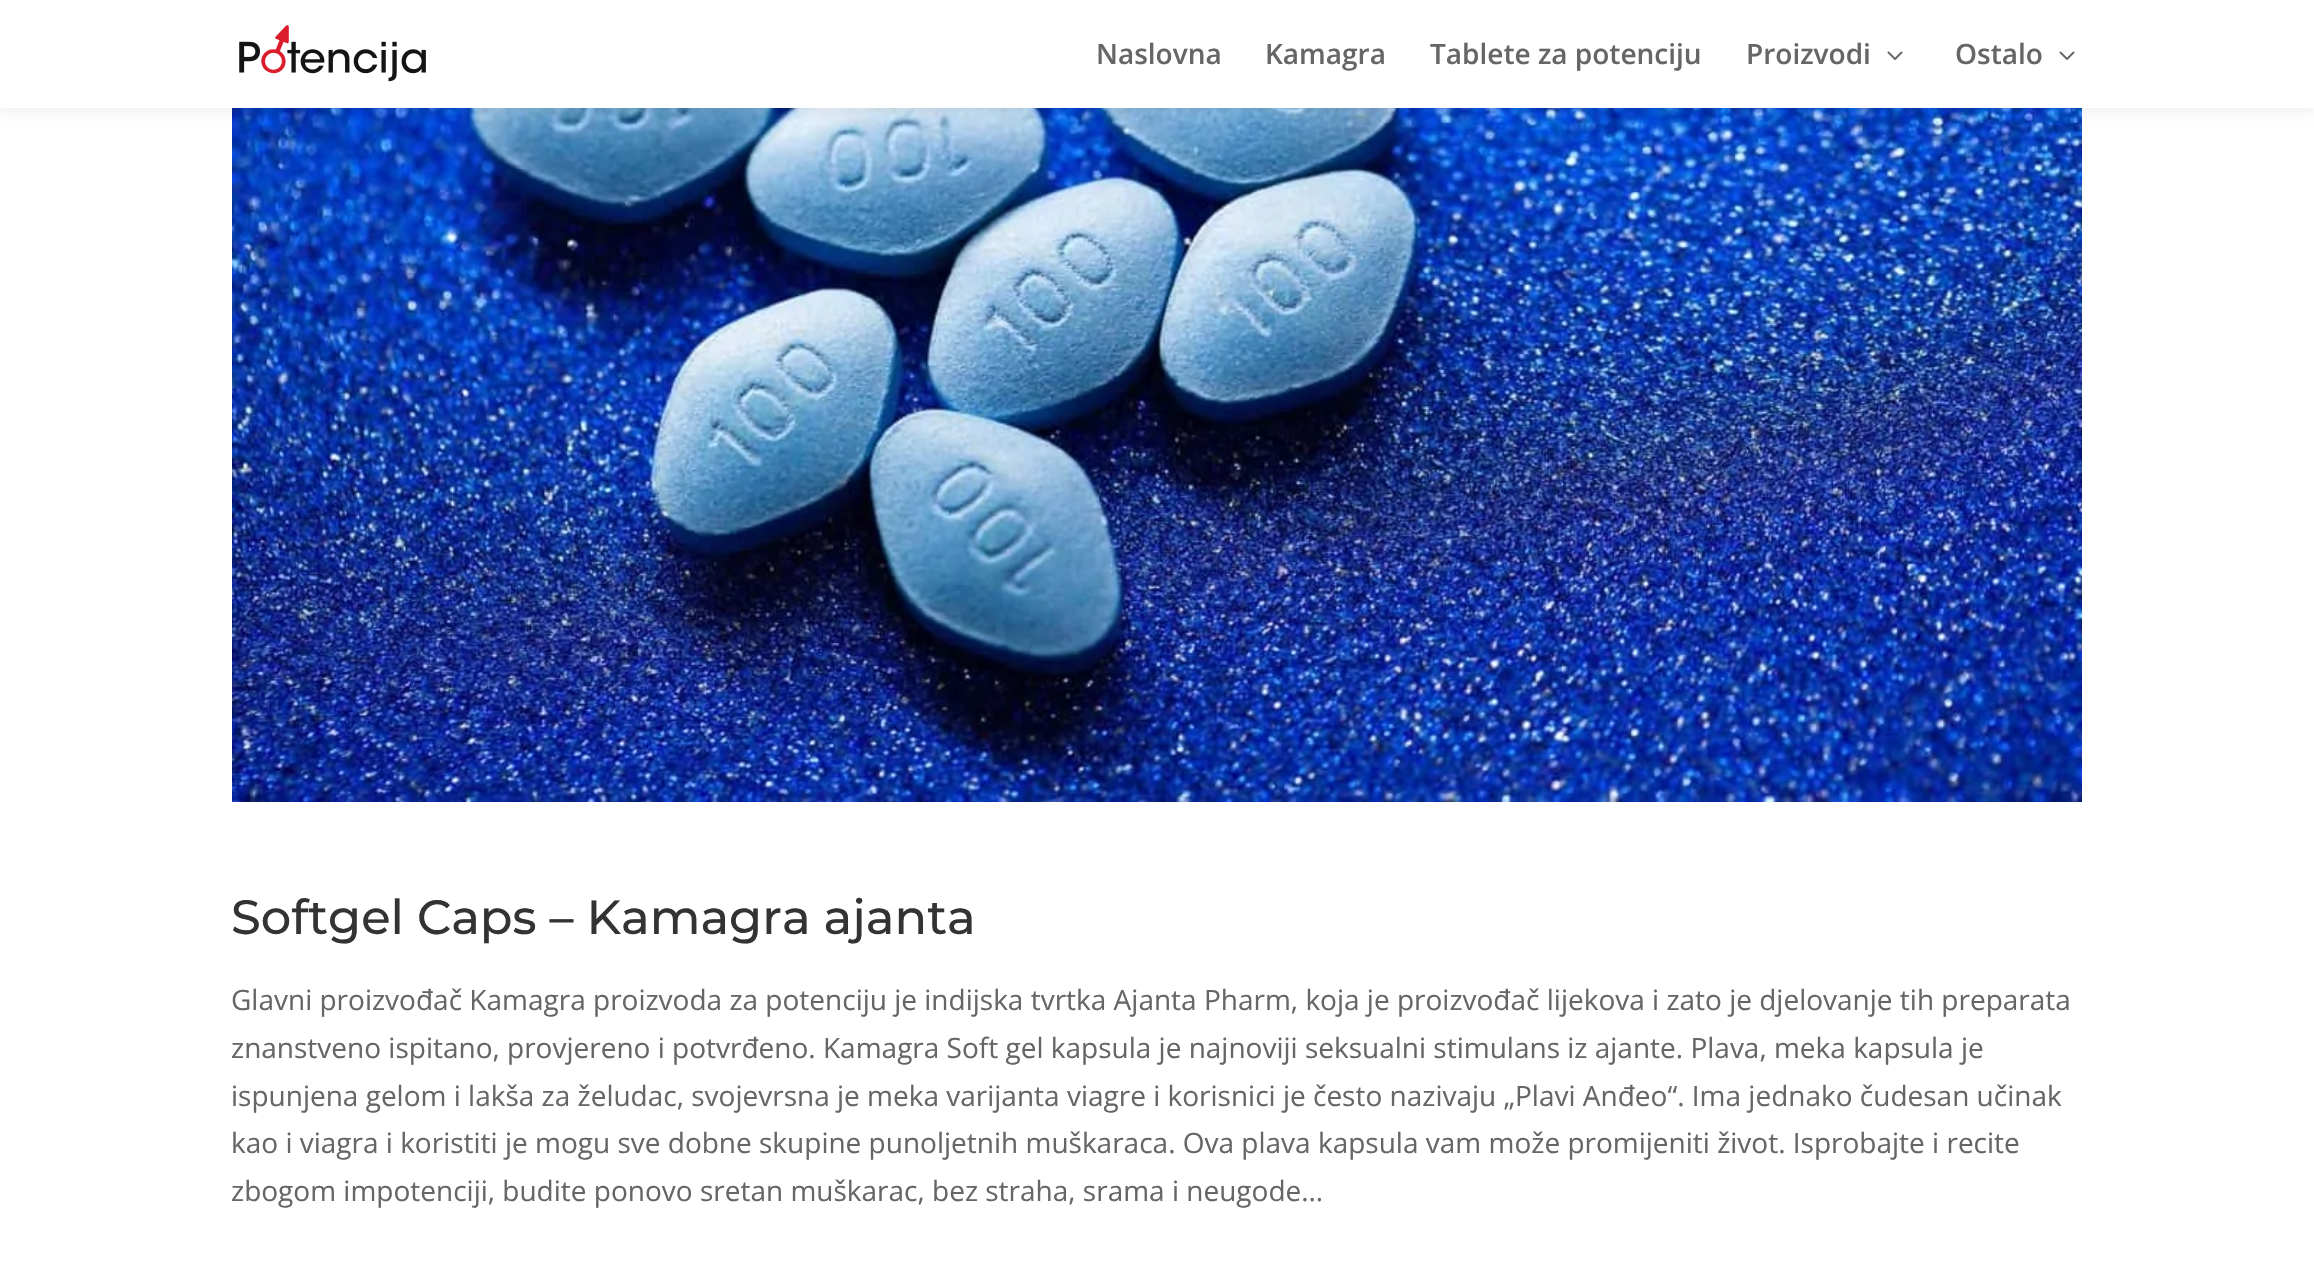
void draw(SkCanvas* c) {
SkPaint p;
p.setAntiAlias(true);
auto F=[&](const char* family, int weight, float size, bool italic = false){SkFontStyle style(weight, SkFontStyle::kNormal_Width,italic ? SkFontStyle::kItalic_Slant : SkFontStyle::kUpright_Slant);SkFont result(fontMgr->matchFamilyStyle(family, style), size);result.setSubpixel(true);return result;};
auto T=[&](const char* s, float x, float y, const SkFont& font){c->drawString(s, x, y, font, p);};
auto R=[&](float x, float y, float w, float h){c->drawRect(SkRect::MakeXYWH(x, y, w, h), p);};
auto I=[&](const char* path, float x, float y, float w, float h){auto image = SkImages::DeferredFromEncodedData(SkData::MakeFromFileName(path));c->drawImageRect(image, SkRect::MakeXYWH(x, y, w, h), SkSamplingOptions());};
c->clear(0xffffffff);
I("3.png",232,108,1850,694);
p.setColor(0x1a000000);
p.setMaskFilter(SkMaskFilter::MakeBlur(kNormal_SkBlurStyle, 7));
c->drawRect(SkRect::MakeXYWH(0,0,2314,108),p);
p.setMaskFilter(nullptr);
p.setColor(0xffffffff);
R(0,0,2314,108);
I("1.png",239,25,187,57);
auto f1 = F("Open Sans",600,28);
p.setColor(0xff666666);
T("Naslovna",1096,64,f1);
T("Kamagra",1265,64,f1);
T("Tablete za potenciju",1430,64,f1);
T("Proizvodi",1746,64,f1);
I("2.png",1887,51,16,9);
T("Ostalo",1955,64,f1);
I("2.png",2059,51,16,9);
auto f2 = F("Montserrat",100,48);
p.setColor(0xff333333);
T("Softgel Caps – Kamagra ajanta",231,934,f2);
auto f3 = F("Open Sans",400,28);
p.setColor(0xff666666);
T("Glavni proizvođač Kamagra proizvoda za potenciju je indijska tvrtka Ajanta Pharm, koja je proizvođač lijekova i zato je djelovanje tih preparata",231,1010,f3);
T("znanstveno ispitano, provjereno i potvrđeno. Kamagra Soft gel kapsula je najnoviji seksualni stimulans iz ajante. Plava, meka kapsula je",231,1058,f3);
T("ispunjena gelom i lakša za želudac, svojevrsna je meka varijanta viagre i korisnici je često nazivaju „Plavi Anđeo“. Ima jednako čudesan učinak",231,1106,f3);
T("kao i viagra i koristiti je mogu sve dobne skupine punoljetnih muškaraca. Ova plava kapsula vam može promijeniti život. Isprobajte i recite",231,1153,f3);
T("zbogom impotenciji, budite ponovo sretan muškarac, bez straha, srama i neugode…",231,1201,f3);
}
